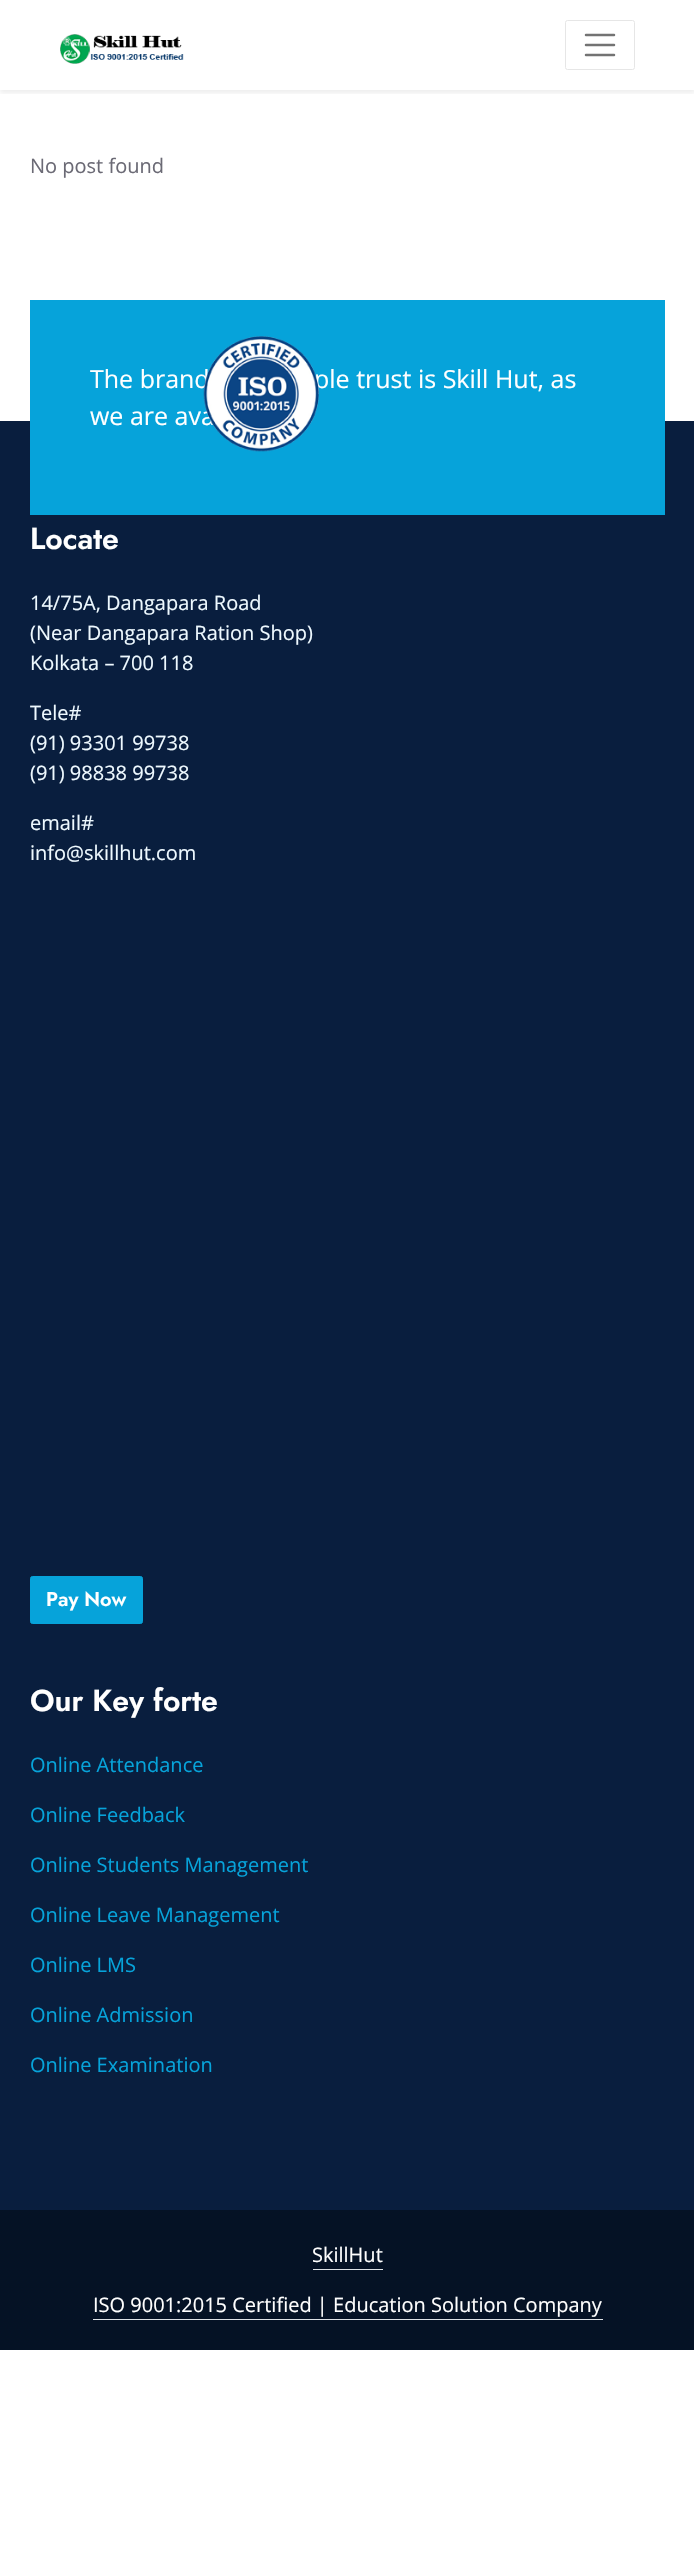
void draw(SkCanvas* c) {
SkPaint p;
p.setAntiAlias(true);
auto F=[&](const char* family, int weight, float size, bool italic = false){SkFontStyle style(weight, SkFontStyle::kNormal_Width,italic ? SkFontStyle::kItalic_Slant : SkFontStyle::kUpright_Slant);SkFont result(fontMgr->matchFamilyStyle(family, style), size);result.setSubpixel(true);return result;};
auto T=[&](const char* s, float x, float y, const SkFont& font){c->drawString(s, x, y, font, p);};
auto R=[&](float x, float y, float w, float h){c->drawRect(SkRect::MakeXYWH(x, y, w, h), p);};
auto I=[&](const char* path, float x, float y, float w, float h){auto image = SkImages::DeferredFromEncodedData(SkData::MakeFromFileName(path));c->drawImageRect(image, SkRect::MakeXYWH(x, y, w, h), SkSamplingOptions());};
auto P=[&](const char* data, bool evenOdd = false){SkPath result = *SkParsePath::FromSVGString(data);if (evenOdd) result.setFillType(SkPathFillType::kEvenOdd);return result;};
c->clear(0xffffffff);
c->save();
c->clipRect(SkRect::MakeXYWH(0,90,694,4));
p.setColor(0x12000000);
p.setMaskFilter(SkMaskFilter::MakeBlur(kNormal_SkBlurStyle, 2.5));
c->drawRect(SkRect::MakeXYWH(0,3,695,90),p);
p.setMaskFilter(nullptr);
c->restore();
I("1.png",60,34,124,30);
p.setStroke(true);
p.setStrokeWidth(1);
p.setColor(0xffe6e6e6);
c->drawRoundRect(SkRect::MakeXYWH(565.5,20.5,69,49),2,2,p);
p.setStrokeWidth(2.5);
p.setStrokeCap(SkPaint::kRound_Cap);
p.setColor(0xff737373);
c->drawPath(P("M586 35h28m-28 10h28m-28 10h28"),p);
p.setStroke(false);
p.setColor(0xff091e3e);
R(0,421,694,1789);
p.setColor(0xff06a3da);
R(30,300,635,215);
auto f1 = F("Open Sans",400,25);
p.setColor(0xffffffff);
T("The brand",90,388,f1);
T("ple trust is Skill Hut, as",314,388,f1);
T("we are ava",90,425,f1);
I("2.png",203,336,116,116);
auto f2 = F("Open Sans",400,20);
p.setColor(0xff6b6a75);
T("No post found",30,173,f2);
auto f3 = F("Jost",600,30.25);
p.setColor(0xffffffff);
T("Locate",30,549,f3);
p.setColor(0xffeef9ff);
T("14/75A, Dangapara Road",30,610,f2);
T("(Near Dangapara Ration Shop)",30,640,f2);
T("Kolkata – 700 118",30,670,f2);
T("Tele#",30,720,f2);
T("(91) 93301 99738",30,750,f2);
T("(91) 98838 99738",30,780,f2);
T("email#",30,830,f2);
T("info@skillhut.com",30,860,f2);
p.setColor(0xff06a3da);
c->drawRoundRect(SkRect::MakeXYWH(30.5,1576.5,112,47),2,2,p);
p.setStroke(true);
p.setStrokeWidth(1);
p.setStrokeCap(SkPaint::kButt_Cap);
c->drawRoundRect(SkRect::MakeXYWH(30.5,1576.5,112,47),2,2,p);
auto f4 = F("Jost",600,20);
p.setStroke(false);
p.setColor(0xffffffff);
T("Pay Now",46,1606,f4);
T("Our Key forte",30,1711,f3);
p.setColor(0xff06a3da);
T("Online Attendance",30,1772,f2);
T("Online Feedback",30,1822,f2);
T("Online Students Management",30,1872,f2);
T("Online Leave Management",30,1922,f2);
T("Online LMS",30,1972,f2);
T("Online Admission",30,2022,f2);
T("Online Examination",30,2072,f2);
p.setColor(0xff051225);
R(0,2210,694,140);
p.setColor(0xffffffff);
T("SkillHut",312,2262,f2);
p.setColor(0xffdee2e6);
R(313,2269,70,1);
p.setColor(0xffffffff);
T("ISO 9001:2015 Certified | Education Solution Company",93,2312,f2);
p.setColor(0xffdee2e6);
R(93,2319,510,1);
}
